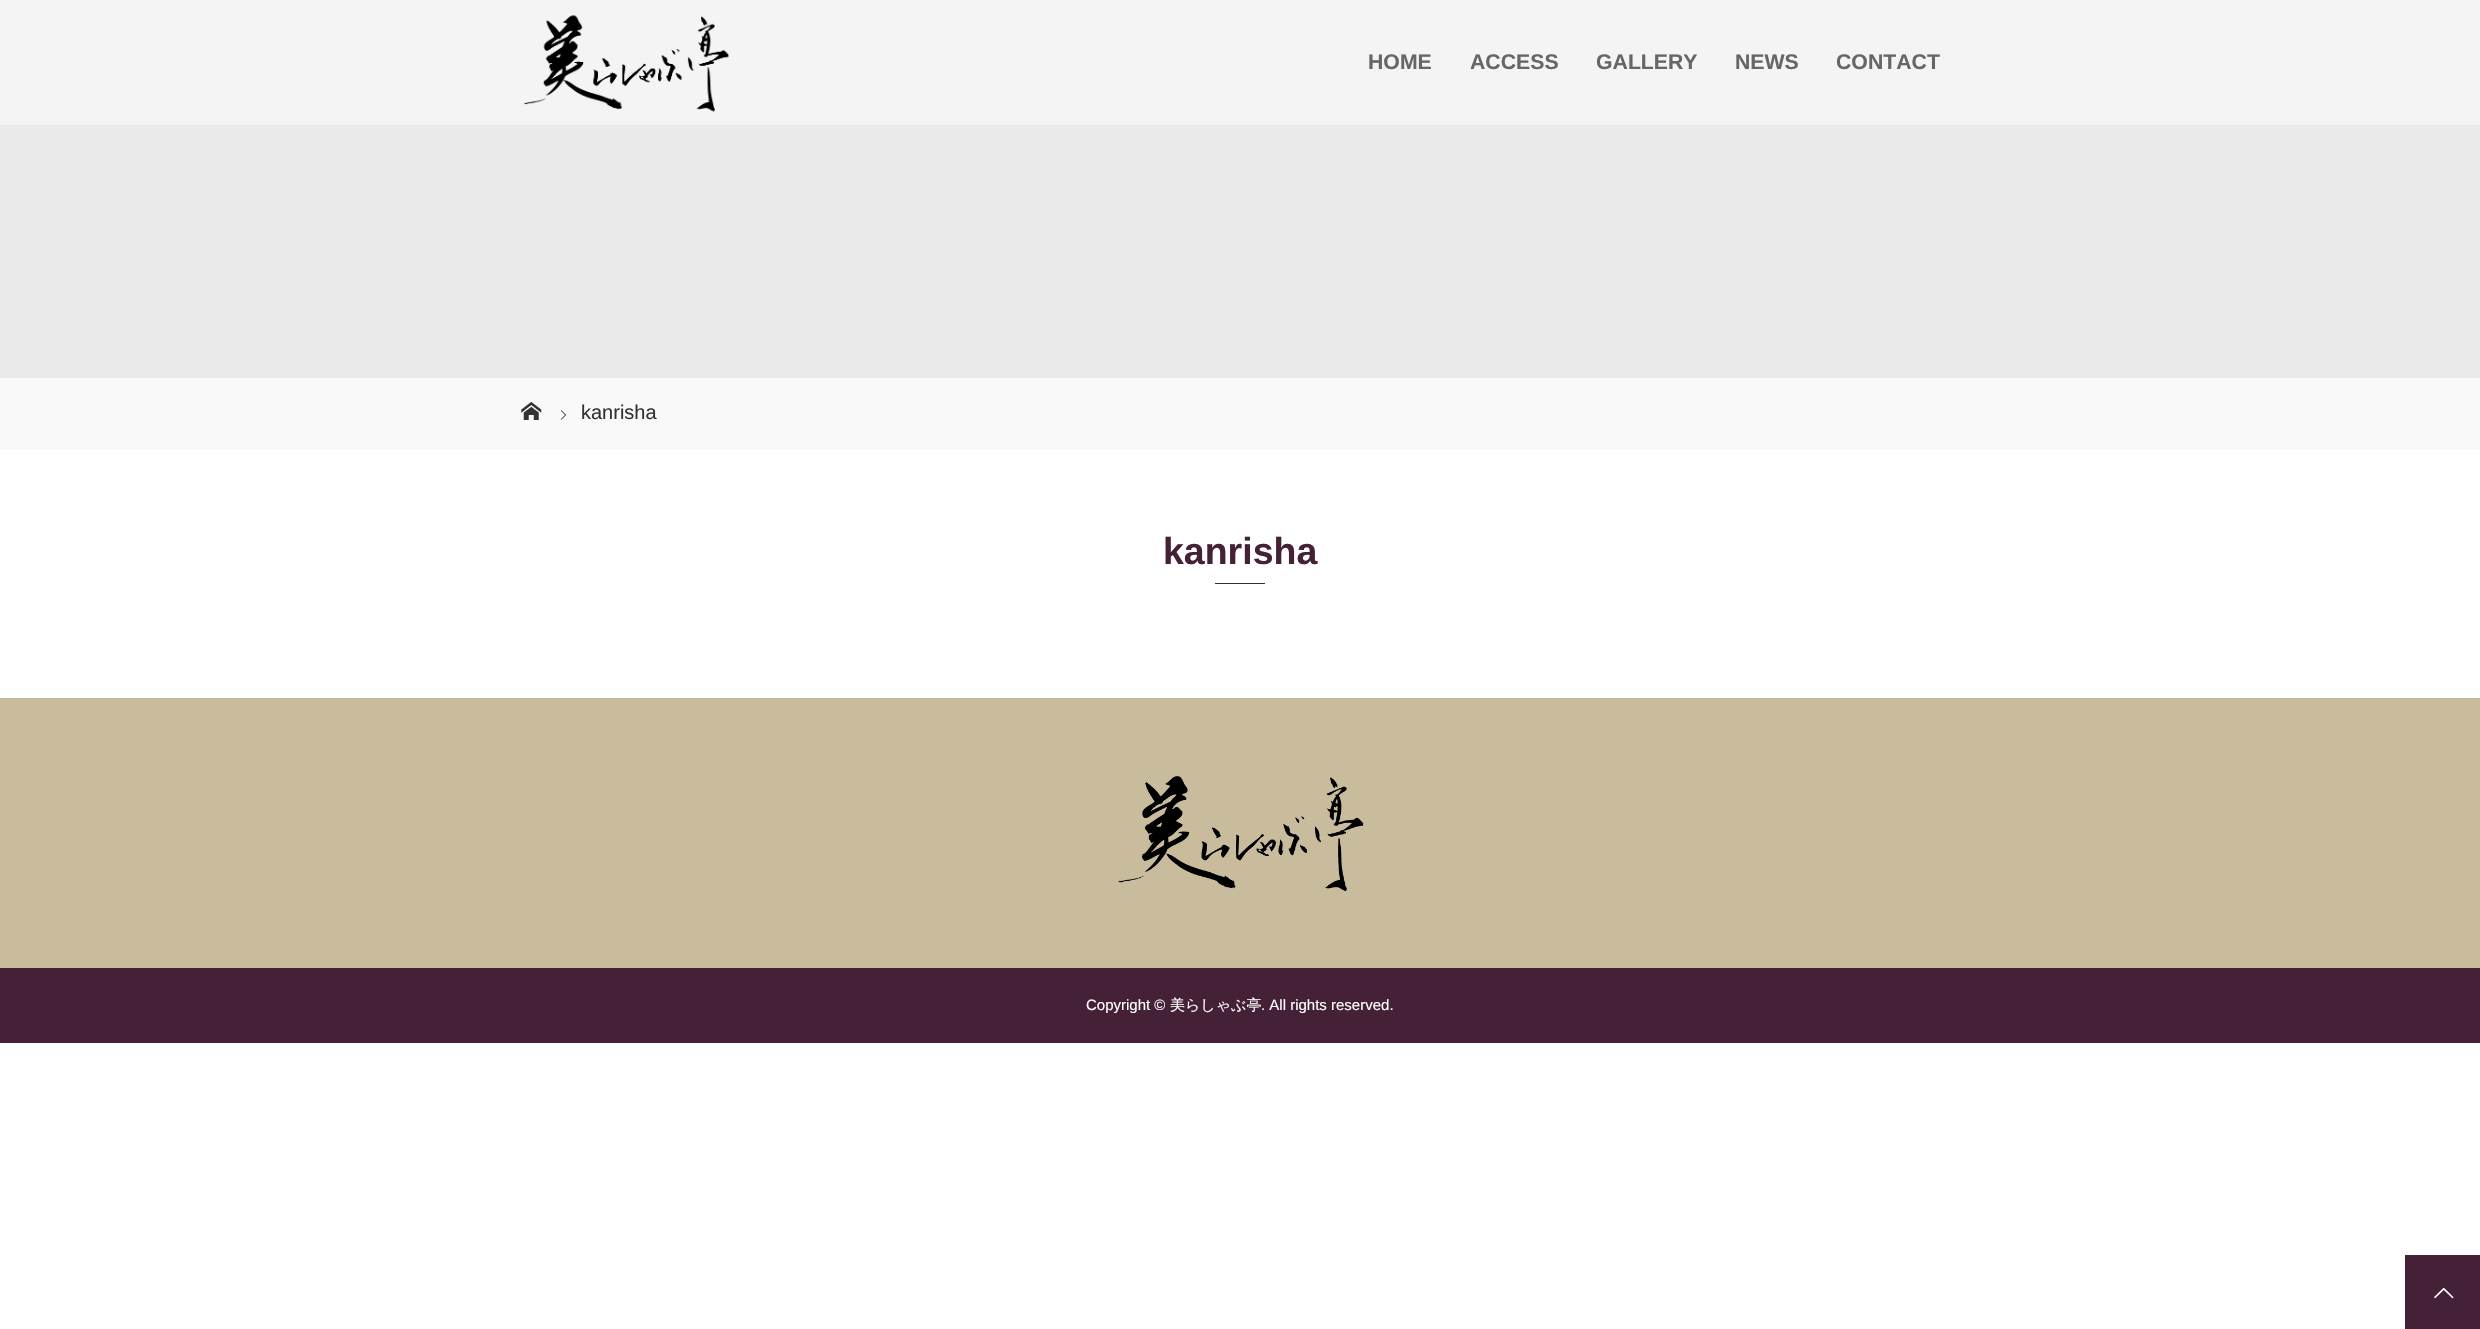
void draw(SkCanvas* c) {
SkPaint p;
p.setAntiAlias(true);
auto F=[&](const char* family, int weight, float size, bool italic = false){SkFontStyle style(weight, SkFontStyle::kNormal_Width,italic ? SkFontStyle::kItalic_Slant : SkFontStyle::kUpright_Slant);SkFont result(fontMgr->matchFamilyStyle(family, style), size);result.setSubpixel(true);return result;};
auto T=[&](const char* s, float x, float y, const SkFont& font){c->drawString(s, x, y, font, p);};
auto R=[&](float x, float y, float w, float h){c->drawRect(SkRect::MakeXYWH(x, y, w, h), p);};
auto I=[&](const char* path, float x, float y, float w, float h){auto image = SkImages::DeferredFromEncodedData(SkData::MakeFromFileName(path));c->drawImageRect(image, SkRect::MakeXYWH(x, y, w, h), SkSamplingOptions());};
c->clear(0xffffffff);
p.setColor(0xfff4f4f4);
R(0,0,2480,125);
I("1.png",524,15,205,97);
auto f1 = F("Liberation Sans",700,21.25);
p.setColor(0xff666666);
T("HOME",1368,69,f1);
T("ACCESS",1470,69,f1);
T("GALLERY",1596,69,f1);
T("NEWS",1735,69,f1);
T("CONTACT",1836,69,f1);
p.setColor(0xffeaeaea);
R(0,125,2480,253);
p.setColor(0xfff9f9f9);
R(0,378,2480,72);
I("2.png",521,401,21,19);
I("3.png",560,410,6,10);
auto f2 = F("Liberation Sans",400,20);
p.setColor(0xff333333);
T("kanrisha",581,419,f2);
auto f3 = F("Liberation Sans",700,37.5);
p.setColor(0xff442136);
T("kanrisha",1163,564,f3);
p.setColor(0xff333333);
R(1215,583,50,1);
p.setColor(0xffc9bc9c);
R(0,698,2480,270);
I("4.png",1118,776,246,115);
p.setColor(0xff442136);
R(0,968,2480,75);
auto f4 = F("Liberation Sans",400,15);
p.setColor(0xffffffff);
T("Copyright ©",1086,1010,f4);
auto f5 = F("WenQuanYi Zen Hei",500,15);
T("美らしゃぶ亭",1170,1010,f5);
T(". All rights reserved.",1261,1010,f4);
p.setColor(0xff442136);
R(2405,1255,75,74);
I("5.png",2434,1287,20,12);
}
